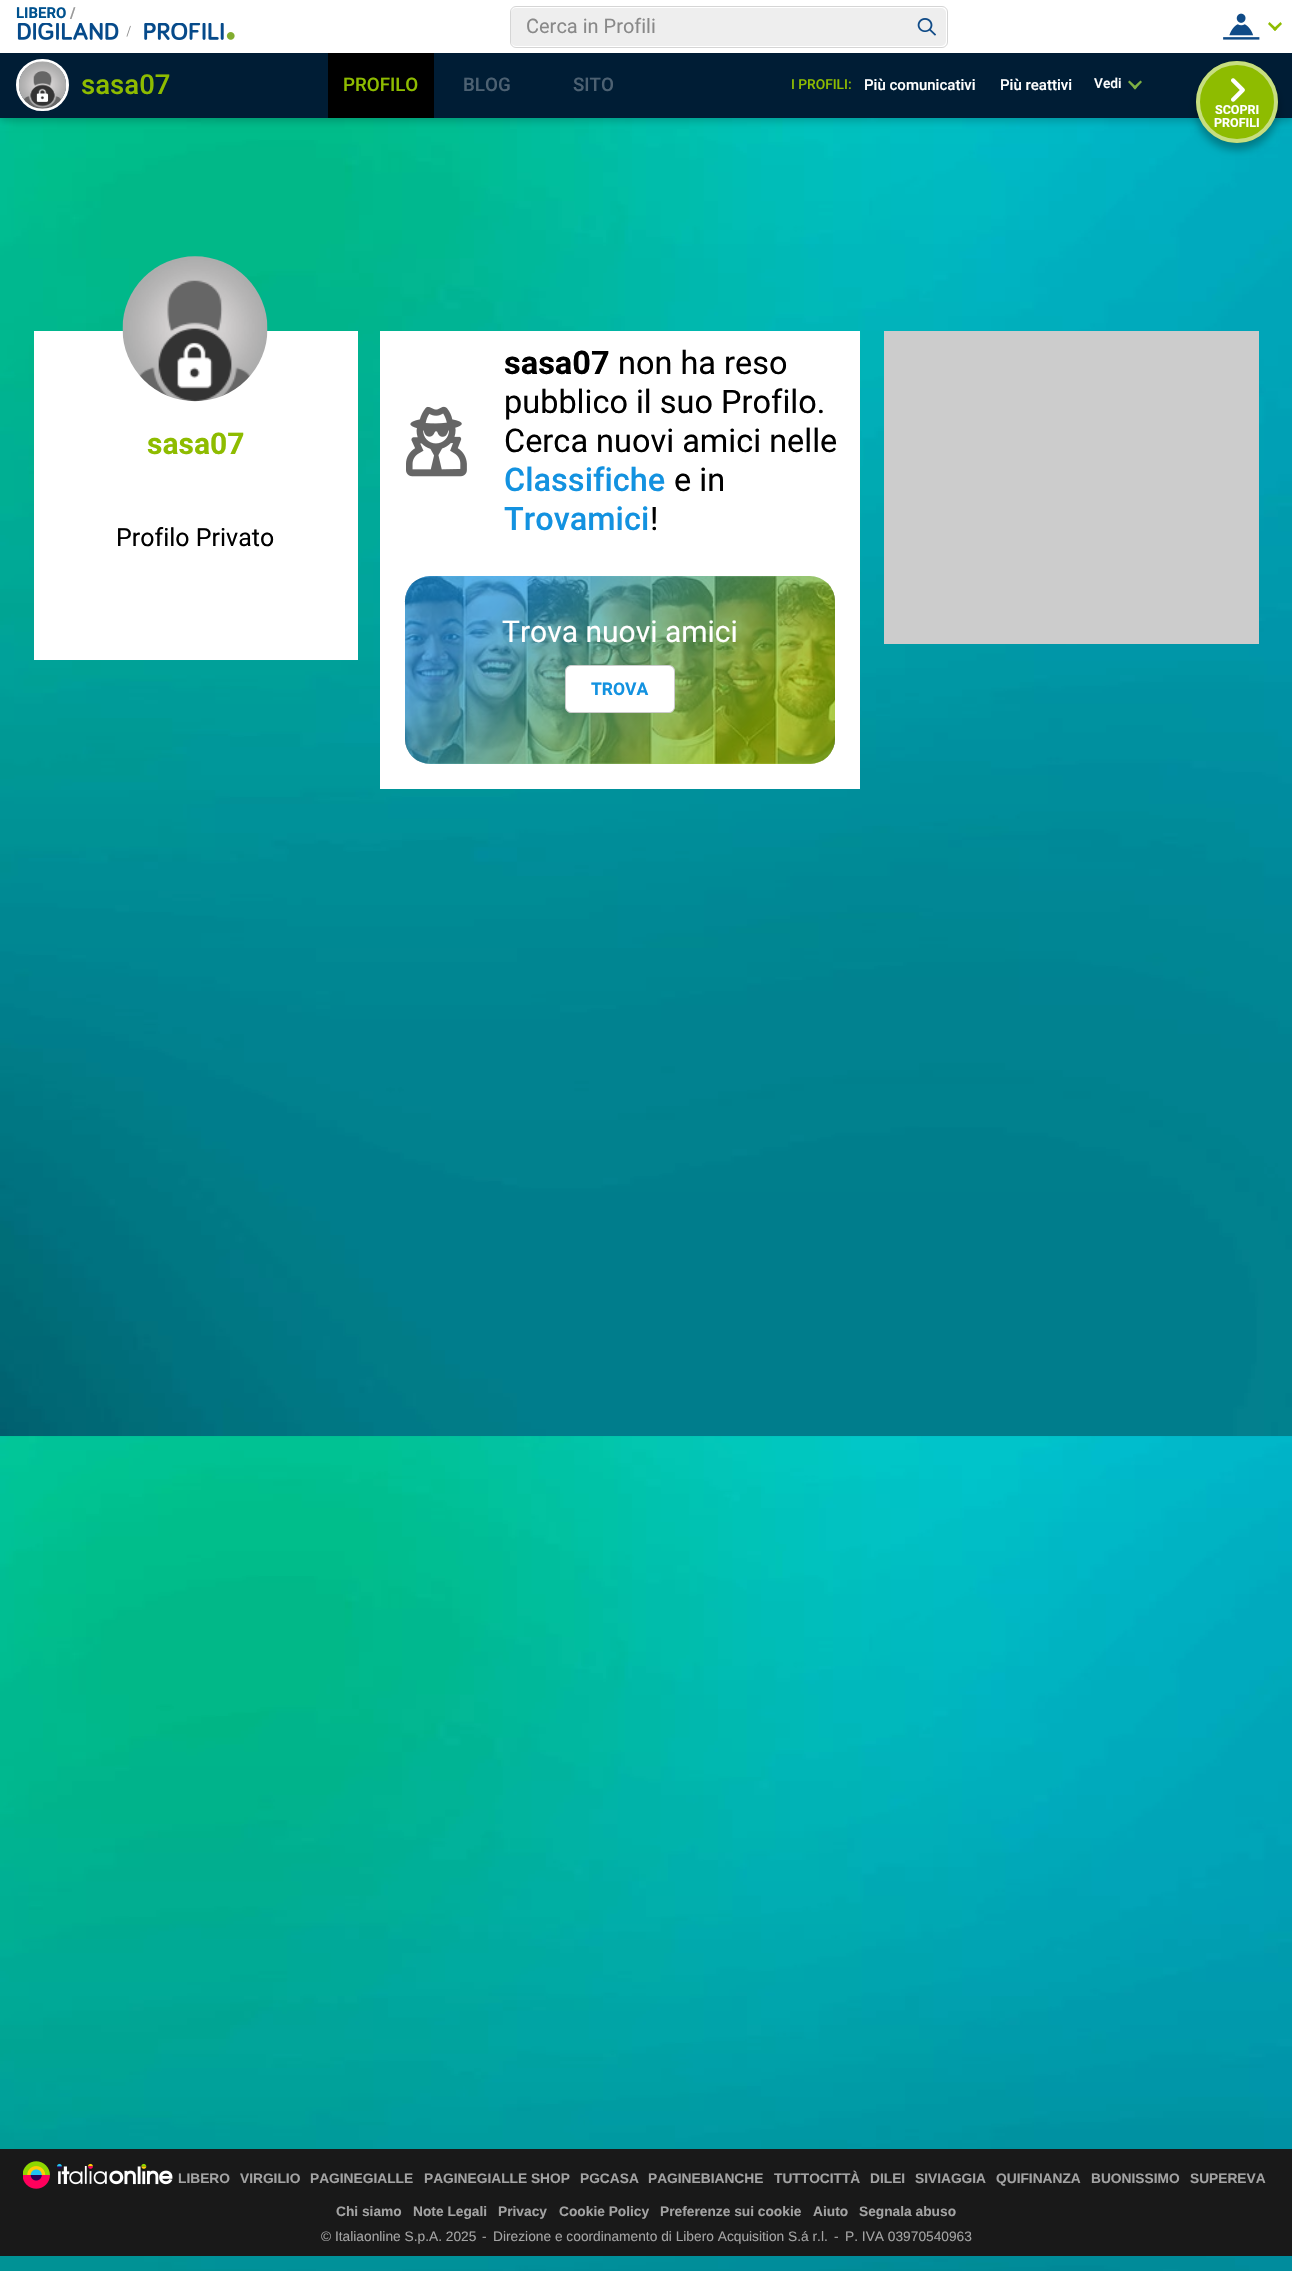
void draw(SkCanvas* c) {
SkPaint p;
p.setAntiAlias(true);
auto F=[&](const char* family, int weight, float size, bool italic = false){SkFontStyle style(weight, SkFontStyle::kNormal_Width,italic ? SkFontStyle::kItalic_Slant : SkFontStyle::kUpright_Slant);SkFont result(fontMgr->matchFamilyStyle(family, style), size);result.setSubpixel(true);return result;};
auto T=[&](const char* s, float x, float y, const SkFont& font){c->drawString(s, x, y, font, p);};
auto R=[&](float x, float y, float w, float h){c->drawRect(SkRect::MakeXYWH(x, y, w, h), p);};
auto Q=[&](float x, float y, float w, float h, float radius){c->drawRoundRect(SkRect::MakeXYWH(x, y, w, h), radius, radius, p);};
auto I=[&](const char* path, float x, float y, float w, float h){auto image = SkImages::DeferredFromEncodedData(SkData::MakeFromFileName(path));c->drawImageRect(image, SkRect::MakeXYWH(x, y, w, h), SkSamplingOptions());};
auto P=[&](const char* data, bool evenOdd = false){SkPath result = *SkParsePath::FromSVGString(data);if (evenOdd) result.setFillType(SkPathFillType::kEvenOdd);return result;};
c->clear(0xffffffff);
I("1.png",0,118,1292,2153);
p.setColor(0x33000000);
p.setMaskFilter(SkMaskFilter::MakeBlur(kNormal_SkBlurStyle, 4));
c->drawRect(SkRect::MakeXYWH(0,4,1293,117),p);
p.setMaskFilter(nullptr);
p.setColor(0xffffffff);
R(0,0,1292,53);
auto f1 = F("Roboto",700,15);
p.setColor(0xff00528f);
T("LIBERO",16,18,f1);
p.setColor(0xff999999);
T("/",70,18,f1);
p.setColor(0xffeeeeee);
Q(511,8,435,38,5);
p.setStroke(true);
p.setStrokeWidth(1);
p.setColor(0xffd5d5d5);
c->drawRoundRect(SkRect::MakeXYWH(510.5,6.5,437,41),5.5,5.5,p);
auto f2 = F("Roboto",400,20);
p.setStroke(false);
p.setColor(0xff898989);
T("Cerca in Profili",526,33,f2);
I("2.png",917,18,19,18);
I("3.png",1223,13,37,27);
p.setColor(0xff8ebc00);
c->drawPath(P("M1280.5 22l1.5 2l-7 7l-2-2z"),p);
c->drawPath(P("M1269.5 22l7.5 7l-2 2l-7-7z"),p);
I("4.png",17,23,102,17);
I("5.png",126,25,5,12);
I("6.png",144,23,91,17);
p.setColor(0xff001d35);
R(0,53,1292,65);
p.setStroke(true);
p.setStrokeWidth(3);
p.setColor(0xffffffff);
c->drawRoundRect(SkRect::MakeXYWH(17.5,60.5,50,49),24.5,24.5,p);
I("7.png",18,61,48,48);
auto f3 = F("Roboto",500,27.5);
p.setStroke(false);
p.setColor(0xff8ebc00);
T("sasa07",81,94,f3);
p.setColor(0xff000000);
R(328,53,106,65);
auto f4 = F("Roboto",500,18.75);
p.setColor(0xff8ebc00);
T("PROFILO",343,91,f4);
p.setColor(0xff4d6172);
T("BLOG",463,91,f4);
T("SITO",573,91,f4);
auto f5 = F("Roboto",500,13.75);
p.setColor(0xff8ebc00);
T("I PROFILI:",791,89,f5);
auto f6 = F("Roboto",500,15);
p.setColor(0xffffffff);
T("Più comunicativi",864,90,f6);
T("Più reattivi",1000,90,f6);
T("Vedi",1094,88,f5);
p.setColor(0xff7eb144);
c->drawPath(P("M1140.5 80.5l1.5 1.5l-7 7.5l-2-2z"),p);
c->drawPath(P("M1129.5 80.5l7.5 7l-2 2l-7-7.5z"),p);
p.setColor(0x4d000000);
p.setMaskFilter(SkMaskFilter::MakeBlur(kNormal_SkBlurStyle, 4));
c->drawRoundRect(SkRect::MakeXYWH(1196,69,82,81),40.5,40.5,p);
p.setMaskFilter(nullptr);
p.setColor(0xff8ebc00);
c->drawCircle(1237,102,41,p);
p.setStroke(true);
p.setStrokeWidth(4);
p.setColor(0x80ffffff);
c->drawCircle(1237,102,39,p);
I("8.png",1231,78,14,24);
auto f7 = F("Roboto",700,12.5);
p.setStroke(false);
p.setColor(0xffffffff);
T("SCOPRI",1215,114,f7);
T("PROFILI",1214,127,f7);
R(34,331,324,329);
I("9.png",122,256,146,146);
auto f8 = F("Roboto",700,30);
p.setColor(0xff8ebc00);
T("sasa07",147,454,f8);
auto f9 = F("Roboto",400,25);
p.setColor(0xff000000);
T("Profilo Privato",116,546,f9);
p.setColor(0xffffffff);
R(380,331,480,458);
I("10.png",406,406,61,71);
auto f10 = F("Roboto",700,32.5);
p.setColor(0xff000000);
T("sasa07",504,374,f10);
auto f11 = F("Roboto",400,32.5);
T("non ha reso",618,374,f11);
T("pubblico il suo Profilo.",504,413,f11);
T("Cerca nuovi amici nelle",504,452,f11);
auto f12 = F("Roboto",500,32.5);
p.setColor(0xff1392e0);
T("Classifiche",504,491,f12);
p.setColor(0xff000000);
T("e in",674,491,f11);
p.setColor(0xff1392e0);
T("Trovamici",504,530,f12);
p.setColor(0xff000000);
T("!",650,530,f11);
I("11.png",404,576,431,188);
{
const SkColor colors[] = {0xb31392e0,0xb31392e0,0xb38ebc00,0xb38ebc00};
const float stops[] = {0,.2,.8,1};
const SkPoint ends[] = {{466,516}, {774,824}};
p.setShader(SkGradientShader::MakeLinear(ends, colors, stops, 4, SkTileMode::kClamp));
p.setAlpha(255);
}
Q(405,576,430,188,25);
auto f13 = F("Roboto",400,30);
p.setShader(nullptr);
p.setColor(0xffffffff);
T("Trova nuovi amici",502,642,f13);
c->drawRoundRect(SkRect::MakeXYWH(565.5,665.5,109,47),5.5,5.5,p);
p.setStroke(true);
p.setStrokeWidth(1);
p.setColor(0xffcccccc);
c->drawRoundRect(SkRect::MakeXYWH(565.5,665.5,109,47),5.5,5.5,p);
auto f14 = F("Roboto",700,17.5);
p.setStroke(false);
p.setColor(0xff1392e0);
T("TROVA",591,695,f14);
p.setColor(0xffcccccc);
R(884,331,375,313);
p.setColor(0xff191919);
R(0,2149,1292,107);
I("12.png",23,2161,150,28);
auto f15 = F("Liberation Sans",700,13.75);
p.setColor(0xffa3a3a3);
T("LIBERO",178,2183,f15);
T("VIRGILIO",240,2183,f15);
T("PAGINEGIALLE",310,2183,f15);
T("PAGINEGIALLE SHOP",424,2183,f15);
T("PGCASA",580,2183,f15);
T("PAGINEBIANCHE",648,2183,f15);
T("TUTTOCITTÀ",774,2183,f15);
T("DILEI",870,2183,f15);
T("SIVIAGGIA",915,2183,f15);
T("QUIFINANZA",996,2183,f15);
T("BUONISSIMO",1091,2183,f15);
T("SUPEREVA",1190,2183,f15);
T("Chi siamo",336,2216,f15);
T("Note Legali",413,2216,f15);
T("Privacy",498,2216,f15);
T("Cookie Policy",559,2216,f15);
T("Preferenze sui cookie",660,2216,f15);
T("Aiuto",813,2216,f15);
T("Segnala abuso",859,2216,f15);
auto f16 = F("Liberation Sans",400,13.75);
T("© Italiaonline S.p.A. 2025",321,2241,f16);
T("-",482,2241,f16);
T("Direzione e coordinamento di Libero Acquisition S.á r.l.",493,2241,f16);
T("-",834,2241,f16);
T("P. IVA 03970540963",845,2241,f16);
}
